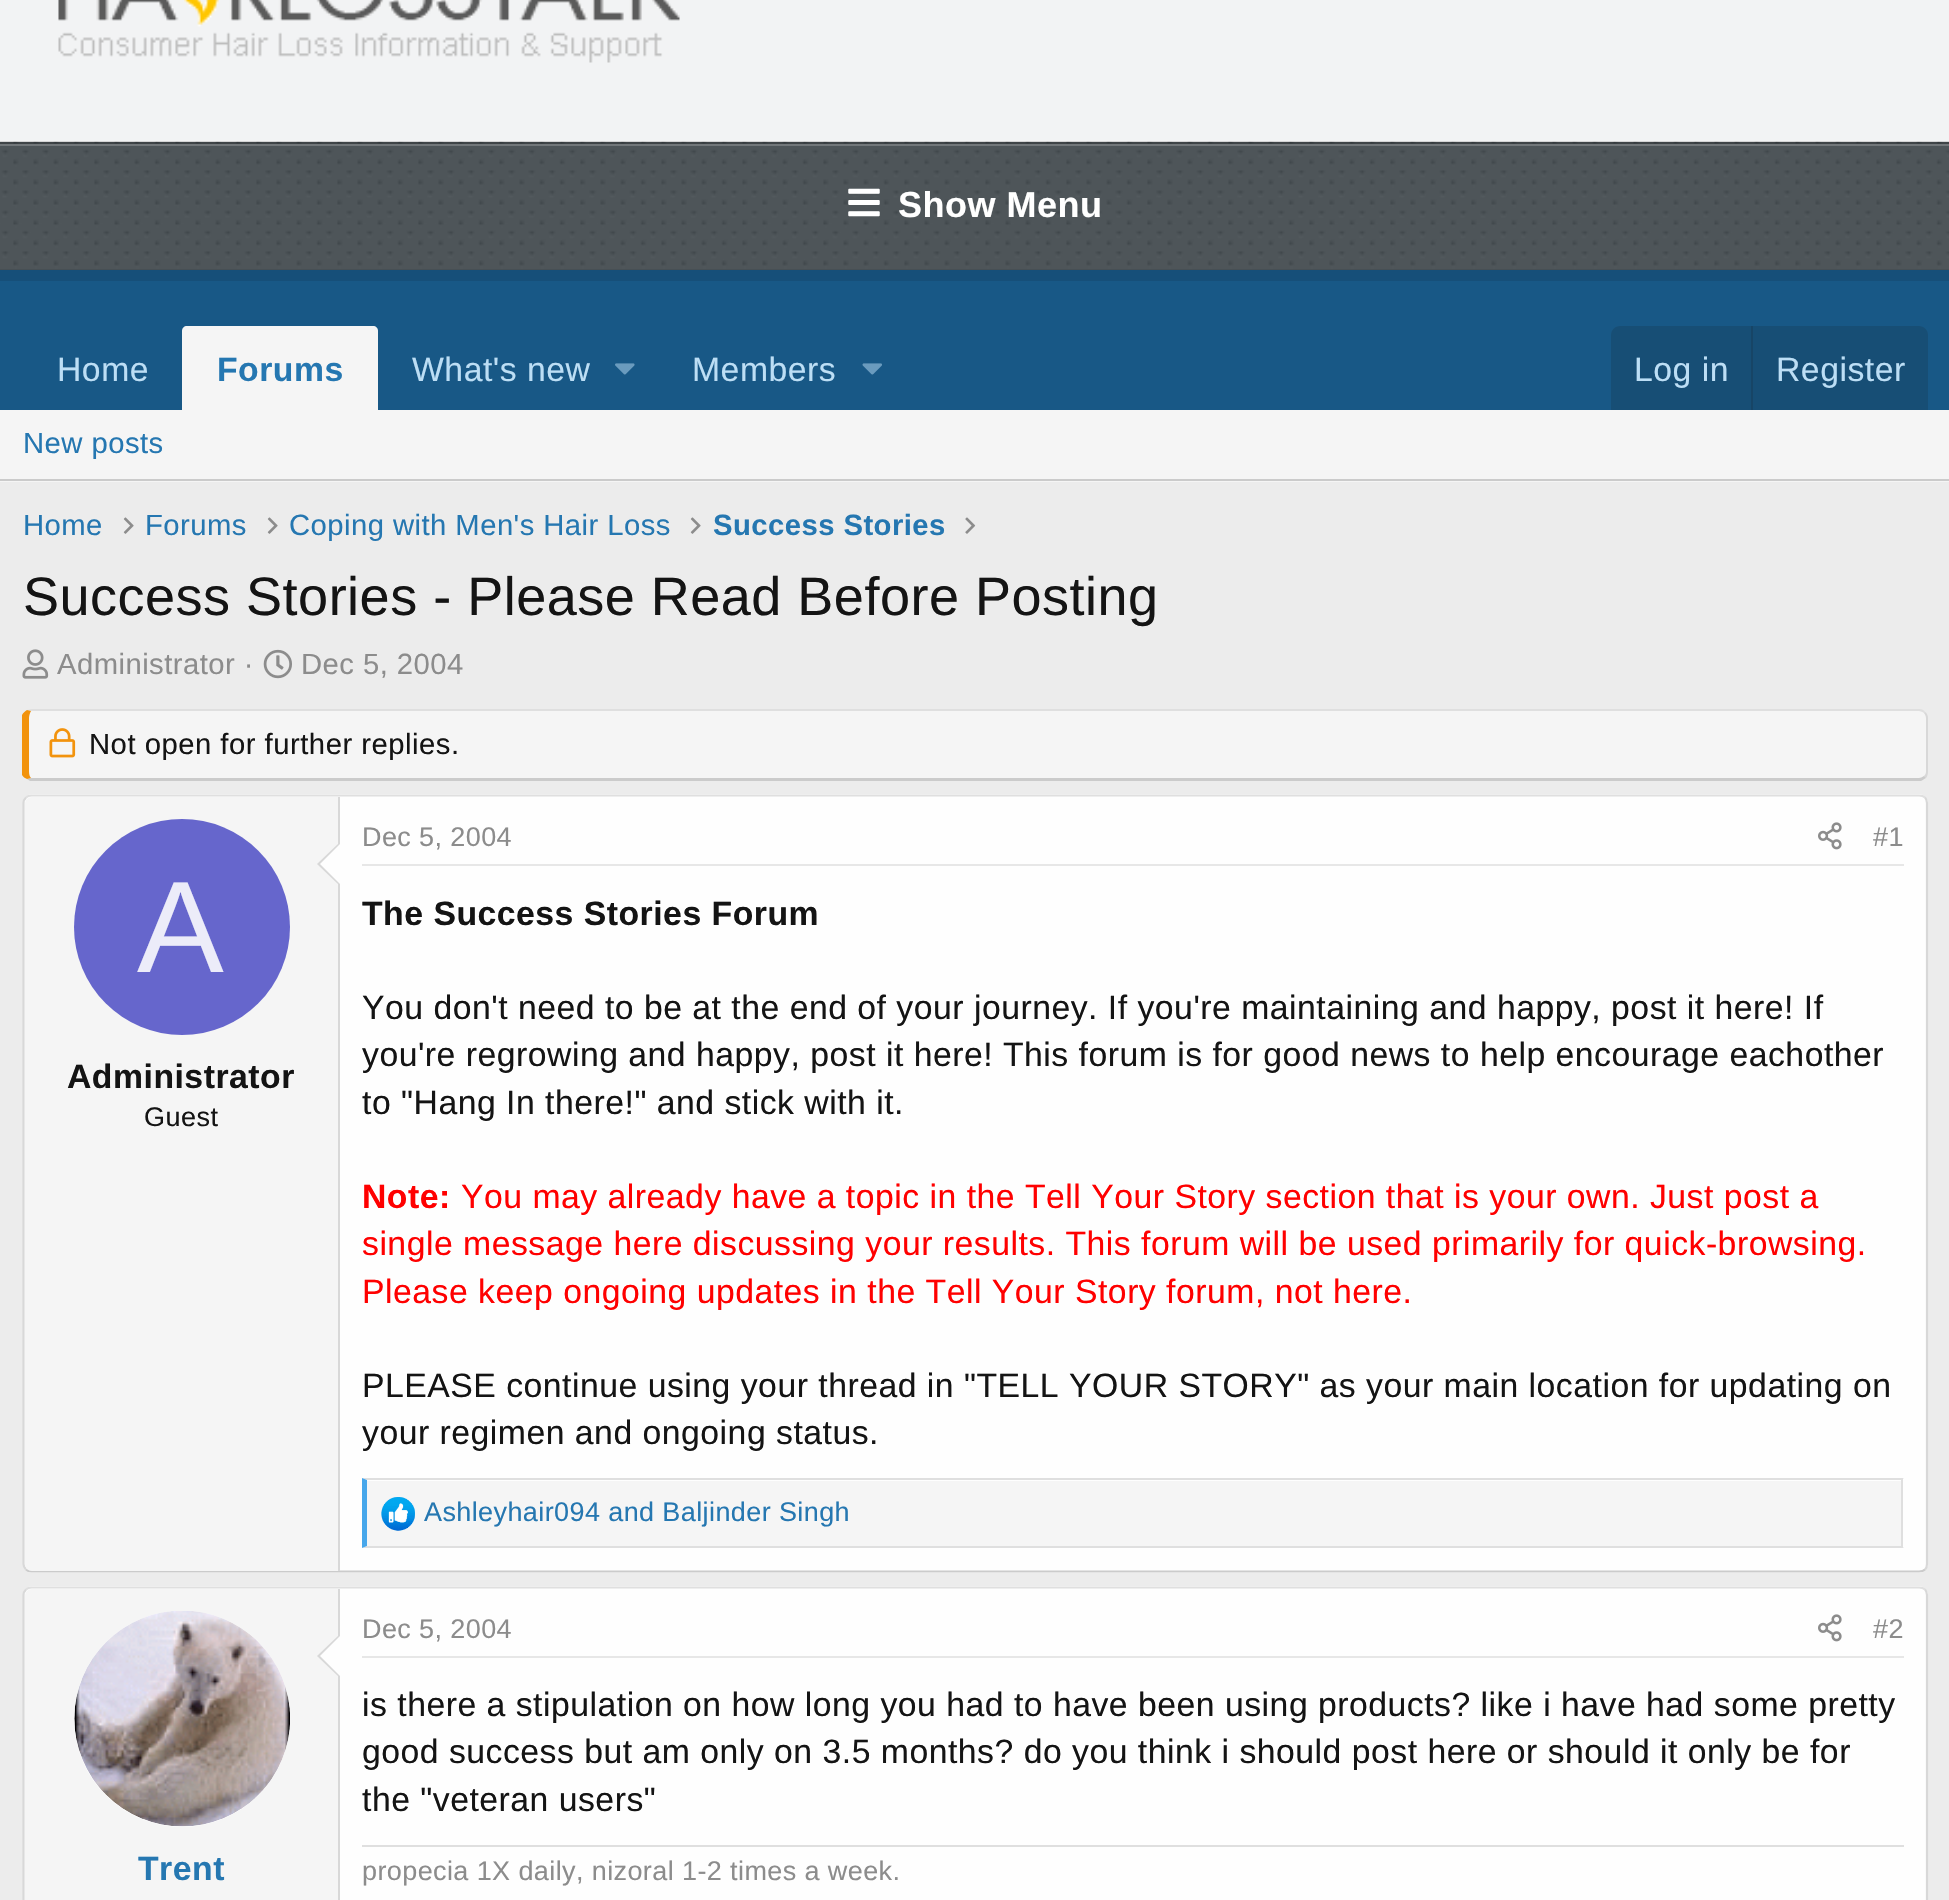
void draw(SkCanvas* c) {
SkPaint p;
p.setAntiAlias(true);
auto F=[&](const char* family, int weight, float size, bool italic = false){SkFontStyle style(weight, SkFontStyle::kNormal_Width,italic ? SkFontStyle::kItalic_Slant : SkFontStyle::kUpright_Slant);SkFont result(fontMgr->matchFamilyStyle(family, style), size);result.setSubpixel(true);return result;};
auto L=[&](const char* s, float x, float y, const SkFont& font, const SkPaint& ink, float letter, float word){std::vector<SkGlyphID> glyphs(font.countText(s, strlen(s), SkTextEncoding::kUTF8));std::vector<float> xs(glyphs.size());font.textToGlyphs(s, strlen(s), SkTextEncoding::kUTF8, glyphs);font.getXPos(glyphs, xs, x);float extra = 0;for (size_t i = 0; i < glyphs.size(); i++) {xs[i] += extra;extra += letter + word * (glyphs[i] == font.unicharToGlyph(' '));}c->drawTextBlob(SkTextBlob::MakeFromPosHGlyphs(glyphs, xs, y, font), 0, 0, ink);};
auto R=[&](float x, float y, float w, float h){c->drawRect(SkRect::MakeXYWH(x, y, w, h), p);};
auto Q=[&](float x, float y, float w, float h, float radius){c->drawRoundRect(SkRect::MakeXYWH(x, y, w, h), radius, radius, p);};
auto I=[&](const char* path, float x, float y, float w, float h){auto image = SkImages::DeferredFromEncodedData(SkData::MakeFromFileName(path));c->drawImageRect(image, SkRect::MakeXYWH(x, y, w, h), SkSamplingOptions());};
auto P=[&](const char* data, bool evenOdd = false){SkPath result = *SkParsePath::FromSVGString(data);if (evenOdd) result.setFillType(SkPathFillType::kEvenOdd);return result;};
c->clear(0xffececec);
p.setColor(0xff185886);
R(0,281,1949,129);
p.setColor(0xfff2f3f4);
R(0,0,1949,142);
I("1.png",58,0,622,63);
p.setColor(0xff164f79);
c->drawPath(P("M0 270v11h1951v-128v117z"),p);
p.setColor(0xff3f484f);
R(0,142,1949,128);
I("2.png",0,141,1949,129);
p.setColor(0xff72777a);
R(0,144,1949,2);
p.setColor(0x33000000);
R(0,142,1949,2);
I("3.png",848,188,32,29);
auto f1 = F("Liberation Sans",700,36);
p.setColor(0xffffffff);
L("Show Menu",898,217,f1,p,.5,0);
auto f2 = F("Liberation Sans",400,33.75);
p.setColor(0xffbcdef5);
L("Home",57,381,f2,p,.5,0);
p.setColor(0xfff5f5f5);
c->drawPath(P("M187 326h186c3 0 5 2 5 5v79h-196v-79c0-3 2-5 5-5z"),p);
auto f3 = F("Liberation Sans",700,33.75);
p.setColor(0xff2577b1);
L("Forums",217,381,f3,p,.5,0);
p.setColor(0xffbcdef5);
L("What's new",412,381,f2,p,.5,0);
I("4.png",615,363,20,12);
L("Members",692,381,f2,p,.5,0);
I("5.png",862,363,20,12);
p.setColor(0xff174e75);
c->drawPath(P("M1620 326h299c5 0 9 4 9 9v75h-317v-75c0-5 4-9 9-9z"),p);
p.setColor(0xffbcdef5);
L("Log in",1634,381,f2,p,.5,0);
p.setColor(0xff174566);
R(1751,326,2,84);
p.setColor(0xffbcdef5);
L("Register",1776,381,f2,p,.5,0);
p.setColor(0xfff5f5f5);
R(0,410,1949,72);
p.setColor(0xffcbcbcb);
R(0,479,1949,2);
auto f4 = F("Liberation Sans",400,29.25);
p.setColor(0xff2577b1);
L("New posts",23,453,f4,p,.45,0);
L("Home",23,535,f4,p,.45,0);
I("6.png",123,517,11,17);
L("Forums",145,535,f4,p,.45,0);
I("6.png",267,517,11,17);
L("Coping with Men's Hair Loss",289,535,f4,p,.45,0);
I("6.png",690,517,11,17);
auto f5 = F("Liberation Sans",700,29.25);
L("Success Stories",713,535,f5,p,.45,0);
I("7.png",965,517,11,17);
auto f6 = F("Liberation Sans",400,54);
p.setColor(0xff141414);
L("Success Stories - Please Read Before Posting",23,615,f6,p,.5,0);
I("8.png",22,649,27,30);
p.setColor(0xff8c8c8c);
L("Administrator ·",57,674,f4,p,.45,0);
I("9.png",263,649,29,30);
L("Dec 5, 2004",301,674,f4,p,.45,0);
p.setColor(0xfff5f5f5);
c->drawPath(P("M32 711h1887c4 0 7 3 7 7v54c0 3-3 6-7 6h-1887c-2 0-3-3-3-6v-54c0-4 1-7 3-7z"),p);
p.setColor(0xffdfdfdf);
c->drawPath(P("M32 709l-5 1l4 1h1h1887c2 0 4 1 5 2l1-1c-1-2-3-3-6-3z"),p);
p.setColor(0xffd8d8d8);
c->drawPath(P("M1925 712c2 1 3 4 3 6v54c0 2-1 5-2 6l-2-2c1-1 2-2 2-4v-54c0-2-1-4-2-5z"),p);
p.setColor(0xffcbcbcb);
c->drawPath(P("M30 781l-3-2l4-1h1888c2 0 3-1 5-2l2 2c-2 1-3 2-5 3z"),p);
p.setColor(0xfff2930d);
c->drawPath(P("M22 715c1-2 3-4 5-5l4 1c-1 2-2 4-2 7v54c0 3 1 5 2 6l-4 1c-2-1-4-2-5-4z"),p);
I("10.png",49,728,27,30);
p.setColor(0xff141414);
L("Not open for further replies.",89,754,f4,p,.5,0);
p.setColor(0xfffefefe);
Q(23,794,1905,779,9);
p.setStroke(true);
p.setStrokeWidth(2.2);
p.setColor(0xffdfdfdf);
c->drawPath(P("M26 797.5c1.5-1.5 3.5-2 5.5-2h1887.5c2.5 0 4.5 .5 6 2"),p);
p.setColor(0xffd8d8d8);
c->drawPath(P("M1925 797.5c1.5 1.5 2 3.5 2 5.5v761c0 2-.5 4-2 5.5"),p);
p.setColor(0xffcbcbcb);
c->drawPath(P("M1925 1569.5c-1.5 1.5-3.5 2-6 2h-1887.5c-2 0-4-.5-5.5-2"),p);
p.setColor(0xffd8d8d8);
c->drawPath(P("M26 1569.5c-1.5-1.5-2.5-3.5-2.5-5.5v-761c0-2 1-4 2.5-5.5"),p);
p.setStroke(false);
p.setColor(0xfff5f5f5);
c->drawPath(P("M32 797h308v774h-308c-4 0-7-3-7-7v-760c0-4 3-7 7-7z"),p);
p.setColor(0xffd8d8d8);
R(338,797,2,774);
c->drawPath(P("M340 842v44l-23-22z"),p);
p.setColor(0xfffefefe);
c->drawPath(P("M340 844v40l-20-20z"),p);
p.setColor(0xff6666cc);
c->drawCircle(182,927,108,p);
auto f7 = F("Liberation Sans",400,130);
p.setColor(0xffececf9);
L("A",137,972,f7,p,.5,0);
p.setColor(0xff141414);
L("Administrator",67,1088,f3,p,.5,0);
auto f8 = F("Liberation Sans",400,27);
L("Guest",144,1126,f8,p,.5,0);
p.setColor(0xffe7e7e7);
R(362,864,1542,2);
p.setColor(0xff8c8c8c);
L("Dec 5, 2004",362,846,f8,p,.4,0);
I("11.png",1818,822,24,28);
L("#1",1873,846,f8,p,.4,0);
p.setColor(0xff141414);
L("The Success Stories Forum",362,925,f3,p,.5,0);
L("You don't need to be at the end of your journey. If you're maintaining and happy, post it here! If",362,1019,f2,p,.5,0);
L("you're regrowing and happy, post it here! This forum is for good news to help encourage eachother",362,1066,f2,p,.5,0);
L("to \"Hang In there!\" and stick with it.",362,1114,f2,p,.5,0);
p.setColor(0xffff0000);
L("Note:",362,1208,f3,p,.5,0);
L("You may already have a topic in the Tell Your Story section that is your own. Just post a",461,1208,f2,p,.5,0);
L("single message here discussing your results. This forum will be used primarily for quick-browsing.",362,1255,f2,p,.5,0);
L("Please keep ongoing updates in the Tell Your Story forum, not here.",362,1303,f2,p,.5,0);
p.setColor(0xff141414);
L("PLEASE continue using your thread in \"TELL YOUR STORY\" as your main location for updating on",362,1397,f2,p,.5,0);
L("your regimen and ongoing status.",362,1444,f2,p,.5,0);
p.setColor(0xfff5f5f5);
R(367,1481,1534,65);
p.setColor(0xffdfdfdf);
c->drawPath(P("M362 1478h1542l-3 2h-1534z"),p);
R(1901,1478,2,70);
c->drawPath(P("M1904 1548h-1542l5-2h1534z"),p);
p.setColor(0xff47a7eb);
c->drawPath(P("M362 1548v-70l5 2v66z"),p);
I("12.png",381,1497,34,34);
p.setColor(0xff2577b1);
L("Ashleyhair094 and Baljinder Singh",424,1521,f8,p,.4,0);
p.setColor(0xfffefefe);
Q(23,1586,1905,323,9);
p.setStroke(true);
p.setColor(0xffdfdfdf);
c->drawPath(P("M26 1589.5c1.5-1.5 3.5-2 5.5-2h1887.5c2.5 0 4.5 .5 6 2"),p);
p.setColor(0xffd8d8d8);
c->drawPath(P("M1925 1589.5c1.5 1.5 2 3.5 2 5.5v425.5c0 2-.5 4-2 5.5"),p);
c->drawPath(P("M26 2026c-1.5-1.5-2.5-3.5-2.5-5.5v-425.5c0-2 1-4 2.5-5.5"),p);
p.setStroke(false);
p.setColor(0xfff5f5f5);
c->drawPath(P("M32 1589h308v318h-308c-4 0-7-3-7-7v-304c0-4 3-7 7-7z"),p);
p.setColor(0xffd8d8d8);
R(338,1589,2,311);
p.setColor(0xfffefefe);
c->drawCircle(182,1719,108,p);
I("13.png",74,1611,216,216);
p.setColor(0xffd8d8d8);
c->drawPath(P("M340 1634v44l-23-22z"),p);
p.setColor(0xfffefefe);
c->drawPath(P("M340 1636v40l-20-20z"),p);
p.setColor(0xff2577b1);
L("Trent",138,1880,f3,p,.5,0);
p.setColor(0xffe7e7e7);
R(362,1656,1542,2);
p.setColor(0xff8c8c8c);
L("Dec 5, 2004",362,1638,f8,p,.4,0);
I("11.png",1818,1614,24,28);
L("#2",1873,1638,f8,p,.4,0);
p.setColor(0xff141414);
L("is there a stipulation on how long you had to have been using products? like i have had some pretty",362,1716,f2,p,.5,0);
L("good success but am only on 3.5 months? do you think i should post here or should it only be for",362,1763,f2,p,.5,0);
L("the \"veteran users\"",362,1811,f2,p,.5,0);
p.setColor(0xffdfdfdf);
R(362,1845,1542,2);
p.setColor(0xff8c8c8c);
L("propecia 1X daily, nizoral 1-2 times a week.",362,1880,f8,p,.4,0);
}
